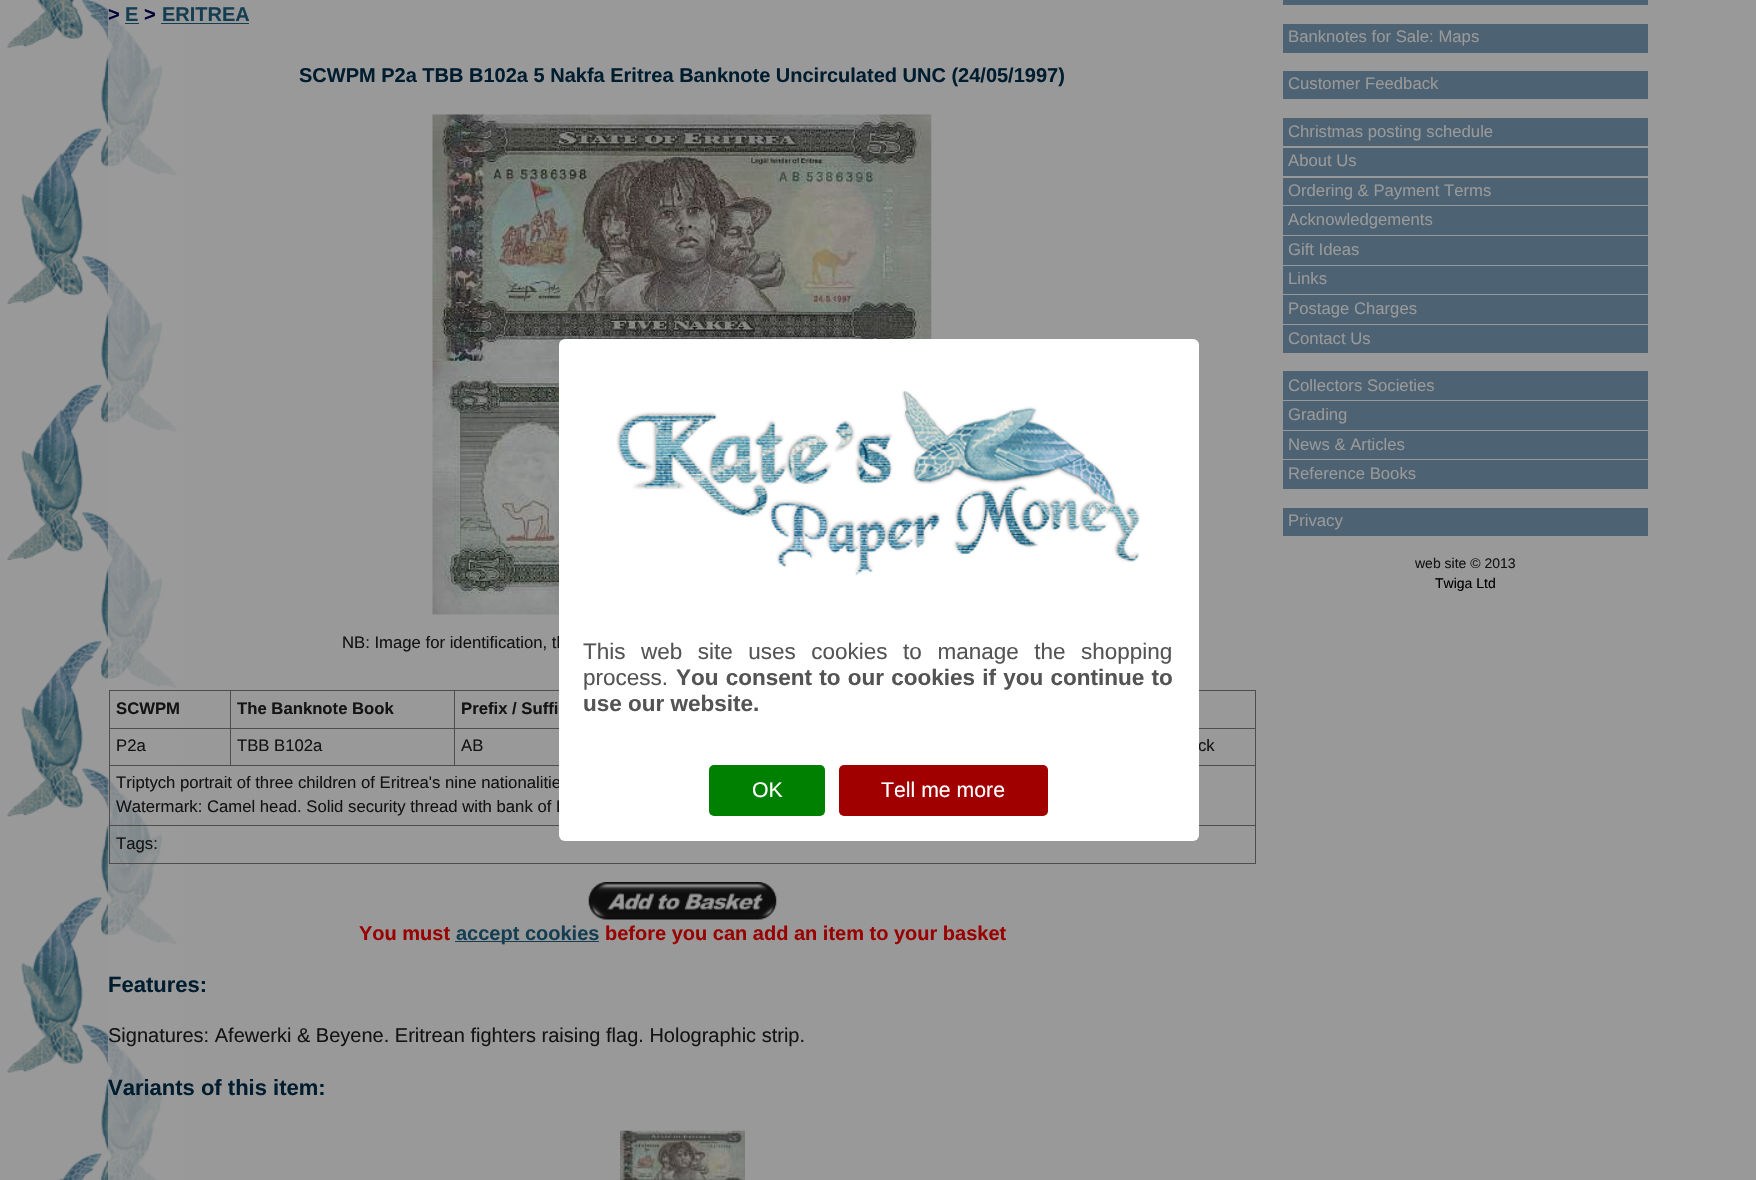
void draw(SkCanvas* c) {
SkPaint p;
p.setAntiAlias(true);
auto F=[&](const char* family, int weight, float size, bool italic = false){SkFontStyle style(weight, SkFontStyle::kNormal_Width,italic ? SkFontStyle::kItalic_Slant : SkFontStyle::kUpright_Slant);SkFont result(fontMgr->matchFamilyStyle(family, style), size);result.setSubpixel(true);return result;};
auto T=[&](const char* s, float x, float y, const SkFont& font){c->drawString(s, x, y, font, p);};
auto L=[&](const char* s, float x, float y, const SkFont& font, const SkPaint& ink, float letter, float word){std::vector<SkGlyphID> glyphs(font.countText(s, strlen(s), SkTextEncoding::kUTF8));std::vector<float> xs(glyphs.size());font.textToGlyphs(s, strlen(s), SkTextEncoding::kUTF8, glyphs);font.getXPos(glyphs, xs, x);float extra = 0;for (size_t i = 0; i < glyphs.size(); i++) {xs[i] += extra;extra += letter + word * (glyphs[i] == font.unicharToGlyph(' '));}c->drawTextBlob(SkTextBlob::MakeFromPosHGlyphs(glyphs, xs, y, font), 0, 0, ink);};
auto R=[&](float x, float y, float w, float h){c->drawRect(SkRect::MakeXYWH(x, y, w, h), p);};
auto Q=[&](float x, float y, float w, float h, float radius){c->drawRoundRect(SkRect::MakeXYWH(x, y, w, h), radius, radius, p);};
auto I=[&](const char* path, float x, float y, float w, float h){auto image = SkImages::DeferredFromEncodedData(SkData::MakeFromFileName(path));c->drawImageRect(image, SkRect::MakeXYWH(x, y, w, h), SkSamplingOptions());};
c->clear(0xff999999);
I("1.png",7,0,170,1180);
p.setColor(0xbf999999);
R(108,10,69,1170);
auto f1 = F("Liberation Sans",700,20);
p.setColor(0xff00003a);
T(">",108,21,f1);
p.setColor(0xff163e52);
T("E",125,21,f1);
R(125,23,14,1);
p.setColor(0xff00003a);
T(">",144,21,f1);
p.setColor(0xff163e52);
T("ERITREA",162,21,f1);
R(161,23,88,1);
p.setColor(0xff001d30);
T("SCWPM P2a TBB B102a 5 Nakfa Eritrea Banknote Uncirculated UNC (24/05/1997)",299,82,f1);
I("2.png",432,114,500,501);
auto f2 = F("Liberation Sans",400,16.7);
p.setColor(0xff141414);
T("NB: Image for identification, th",342,648,f2);
p.setColor(0xff4d4d4d);
R(109,690,1147,1);
R(1255,690,1,174);
R(109,863,1147,1);
R(109,690,1,174);
auto f3 = F("Liberation Sans",700,16.7);
p.setColor(0xff141414);
T("SCWPM",116,714,f3);
p.setColor(0xff4d4d4d);
R(454,728,105,1);
R(109,765,1147,1);
R(454,728,1,38);
R(230,728,225,1);
R(230,728,1,38);
R(109,728,122,1);
R(230,690,1,39);
p.setColor(0xff141414);
T("The Banknote Book",237,714,f3);
p.setColor(0xff4d4d4d);
R(454,690,1,39);
p.setColor(0xff141414);
T("Prefix / Suffi",461,714,f3);
T("P2a",116,751,f2);
T("TBB B102a",237,751,f2);
T("AB",461,751,f2);
p.setColor(0xff4d4d4d);
R(1199,728,57,1);
p.setColor(0xff141414);
T("ck",1198,751,f2);
T("Triptych portrait of three children of Eritrea's nine nationalitie",116,788,f2);
T("Watermark: Camel head. Solid security thread with bank of E",116,812,f2);
p.setColor(0xff4d4d4d);
R(109,825,1147,1);
p.setColor(0xff141414);
T("Tags:",116,849,f2);
I("3.png",588,882,189,38);
p.setColor(0xff990000);
T("You must",359,940,f1);
p.setColor(0xff163e52);
R(455,941,144,1);
T("accept cookies",456,940,f1);
p.setColor(0xff990000);
T("before you can add an item to your basket",605,940,f1);
auto f4 = F("Liberation Sans",700,22);
p.setColor(0xff001d30);
T("Features:",108,992,f4);
auto f5 = F("Liberation Sans",400,20);
p.setColor(0xff141414);
T("Signatures: Afewerki & Beyene. Eritrean fighters raising flag. Holographic strip.",108,1042,f5);
p.setColor(0xff001d30);
T("Variants of this item:",108,1095,f4);
I("4.png",620,1130,125,50);
p.setColor(0xff4d6273);
R(1283,0,365,5);
R(1283,24,365,29);
p.setColor(0xff999999);
T("Banknotes for Sale: Maps",1288,42,f2);
p.setColor(0xff4d6273);
R(1283,71,365,28);
p.setColor(0xff999999);
T("Customer Feedback",1288,89,f2);
p.setColor(0xff4d6273);
R(1283,118,365,28);
p.setColor(0xff999999);
T("Christmas posting schedule",1288,137,f2);
p.setColor(0xff4d6273);
R(1283,148,365,28);
p.setColor(0xff999999);
T("About Us",1288,166,f2);
p.setColor(0xff4d6273);
R(1283,178,365,27);
p.setColor(0xff999999);
T("Ordering & Payment Terms",1288,196,f2);
p.setColor(0xff4d6273);
R(1283,206,365,29);
p.setColor(0xff999999);
T("Acknowledgements",1288,225,f2);
p.setColor(0xff4d6273);
R(1283,236,365,29);
p.setColor(0xff999999);
T("Gift Ideas",1288,255,f2);
p.setColor(0xff4d6273);
R(1283,266,365,28);
p.setColor(0xff999999);
T("Links",1288,284,f2);
p.setColor(0xff4d6273);
R(1283,295,365,29);
p.setColor(0xff999999);
T("Postage Charges",1288,314,f2);
p.setColor(0xff4d6273);
R(1283,325,365,28);
p.setColor(0xff999999);
T("Contact Us",1288,344,f2);
p.setColor(0xff4d6273);
R(1283,371,365,29);
p.setColor(0xff999999);
T("Collectors Societies",1288,391,f2);
p.setColor(0xff4d6273);
R(1283,401,365,29);
p.setColor(0xff999999);
T("Grading",1288,420,f2);
p.setColor(0xff4d6273);
R(1283,431,365,28);
p.setColor(0xff999999);
T("News & Articles",1288,450,f2);
p.setColor(0xff4d6273);
R(1283,460,365,29);
p.setColor(0xff999999);
T("Reference Books",1288,479,f2);
p.setColor(0xff4d6273);
R(1283,508,365,28);
p.setColor(0xff999999);
T("Privacy",1288,526,f2);
auto f6 = F("Liberation Sans",400,14);
p.setColor(0xff141414);
T("web site © 2013",1415,568,f6);
p.setColor(0xff000000);
T("Twiga Ltd",1435,588,f6);
p.setColor(0xffffffff);
Q(559,339,640,502,6);
I("5.png",616,391,524,185);
auto f7 = F("Liberation Sans",400,22.5);
p.setColor(0xff545454);
L("This web site uses cookies to manage the shopping",583,659,f7,p,0,9.25);
T("process.",583,685,f7);
auto f8 = F("Liberation Sans",700,22.5);
L("You consent to our cookies if you continue to",676,685,f8,p,0,1);
T("use our website.",583,711,f8);
p.setColor(0xff008000);
Q(709,765,116,51,5);
auto f9 = F("Liberation Sans",400,21.25);
p.setColor(0xffffffff);
T("OK",752,797,f9);
p.setColor(0xffa00000);
Q(839,765,209,51,5);
p.setColor(0xffffffff);
T("Tell me more",881,797,f9);
}
